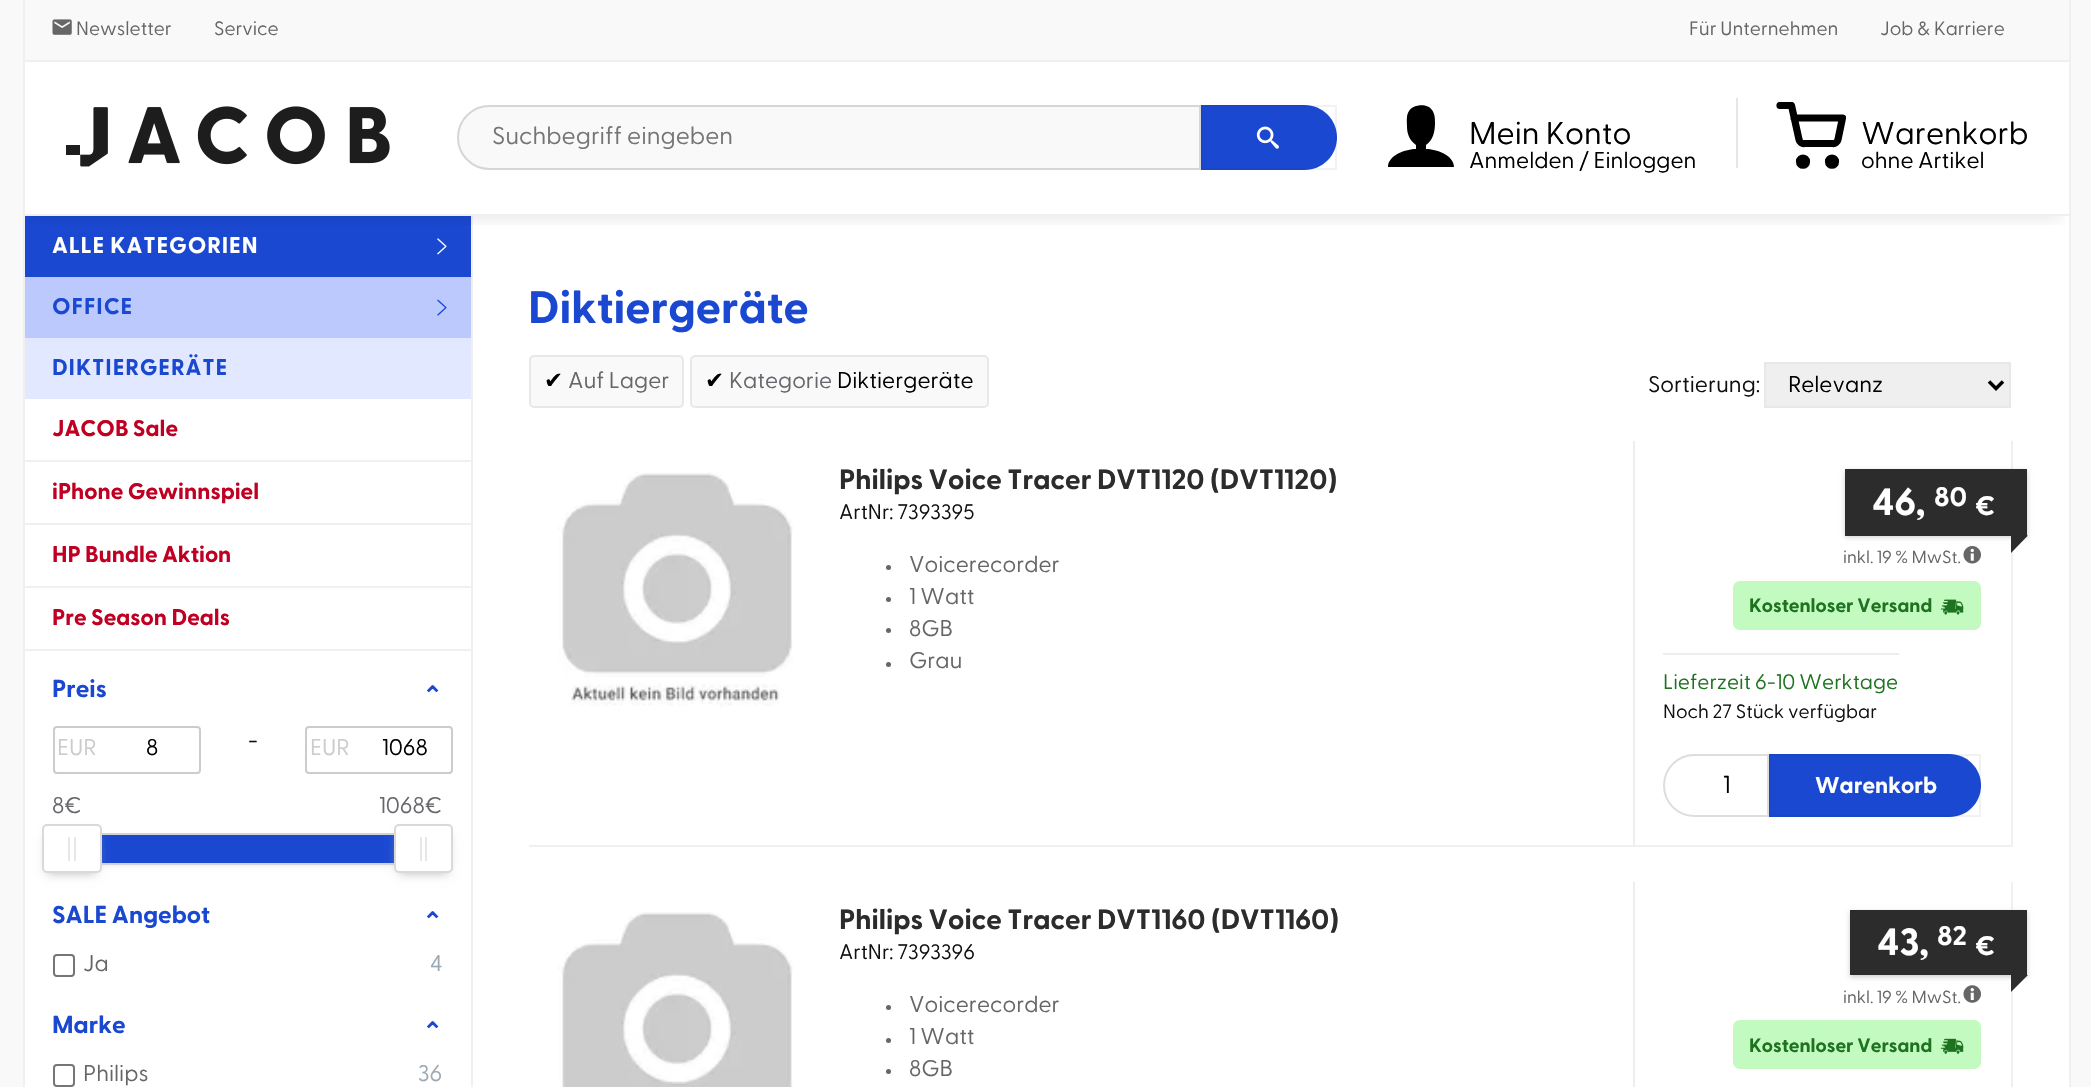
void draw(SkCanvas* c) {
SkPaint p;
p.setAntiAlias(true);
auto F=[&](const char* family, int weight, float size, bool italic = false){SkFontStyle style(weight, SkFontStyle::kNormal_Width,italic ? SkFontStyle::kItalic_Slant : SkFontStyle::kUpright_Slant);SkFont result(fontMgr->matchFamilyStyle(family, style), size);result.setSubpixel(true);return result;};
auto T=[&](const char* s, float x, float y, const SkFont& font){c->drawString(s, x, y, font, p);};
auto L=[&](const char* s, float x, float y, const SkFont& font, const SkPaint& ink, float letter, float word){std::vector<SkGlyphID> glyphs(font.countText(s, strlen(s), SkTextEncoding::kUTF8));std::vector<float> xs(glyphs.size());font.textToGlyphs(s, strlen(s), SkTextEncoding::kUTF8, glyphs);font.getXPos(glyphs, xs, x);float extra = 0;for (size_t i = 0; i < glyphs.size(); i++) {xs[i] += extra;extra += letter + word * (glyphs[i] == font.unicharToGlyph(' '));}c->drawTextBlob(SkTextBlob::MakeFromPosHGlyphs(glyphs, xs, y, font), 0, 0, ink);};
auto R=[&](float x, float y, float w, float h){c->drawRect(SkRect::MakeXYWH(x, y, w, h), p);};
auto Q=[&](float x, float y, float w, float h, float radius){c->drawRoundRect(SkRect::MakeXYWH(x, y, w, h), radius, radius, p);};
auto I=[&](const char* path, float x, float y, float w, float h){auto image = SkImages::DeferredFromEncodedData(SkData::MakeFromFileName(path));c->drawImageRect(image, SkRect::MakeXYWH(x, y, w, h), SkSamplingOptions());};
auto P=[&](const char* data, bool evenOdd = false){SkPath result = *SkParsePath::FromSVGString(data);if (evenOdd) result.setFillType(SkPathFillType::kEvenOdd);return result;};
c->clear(0xfff9f9f9);
p.setColor(0xffffffff);
R(25,216,2044,871);
p.setColor(0xfff0f0f0);
R(471,215,2,872);
R(23,215,2,872);
p.setColor(0xff1a48d1);
R(25,216,446,61);
I("4.png",437,238,10,17);
p.setColor(0xfff0f0f0);
R(2069,215,2,872);
c->save();
c->clipRect(SkRect::MakeXYWH(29,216,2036,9));
p.setColor(0x1a000000);
p.setMaskFilter(SkMaskFilter::MakeBlur(kNormal_SkBlurStyle, 9));
c->drawRect(SkRect::MakeXYWH(32,19,2030,198),p);
p.setMaskFilter(nullptr);
c->restore();
p.setColor(0xfff0f0f0);
R(2069,0,2,215);
R(23,214,2047,2);
R(23,0,2,215);
R(25,60,2044,2);
I("1.png",52,19,20,16);
auto f1 = F("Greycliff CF",400,19.25);
p.setColor(0xff666666);
T("Newsletter",76,35,f1);
T("Service",214,35,f1);
T("Für Unternehmen",1689,35,f1);
T("Job & Karriere",1880,35,f1);
p.setColor(0xffffffff);
R(25,62,2044,152);
I("2.png",66,106,324,61);
p.setColor(0xfff9f9f9);
c->drawPath(P("M489.5 106h710.5v63h-710.5c-17.5 0-31.5-14-31.5-31.5c0-17.5 14-31.5 31.5-31.5z"),p);
p.setStroke(true);
p.setStrokeWidth(2);
p.setColor(0xffd4d6dc);
c->drawPath(P("M489.5 106h710.5v63h-710.5c-17.5 0-31.5-14-31.5-31.5c0-17.5 14-31.5 31.5-31.5z"),p);
auto f2 = F("Greycliff CF",400,24.5);
p.setStroke(false);
p.setColor(0xff757575);
T("Suchbegriff eingeben",492,144,f2);
p.setColor(0xff1a48d1);
c->drawPath(P("M1201 105h103.5c18 0 32.5 14.5 32.5 32.5c0 18-14.5 32.5-32.5 32.5h-103.5z"),p);
p.setStroke(true);
p.setColor(0x0d000000);
c->drawRect(SkRect::MakeXYWH(1202,106,134,63),p);
I("3.png",1256,126,23,23);
p.setStroke(false);
p.setColor(0xff000000);
c->drawPath(P("M1426 149v-4c7-5 9-13 9-22c0-4 0-9-3-13c-4-7-19-6-23 1c-3 4-2 11-2 16c0 7 3 14 9 18v4c-10 0-28 6-28 18h66c0-12-18-18-28-18z"),p);
auto f3 = F("Greycliff CF",400,31.5);
T("Mein Konto",1469,144,f3);
auto f4 = F("Greycliff CF",400,22.75);
T("Anmelden / Einloggen",1469,168,f4);
p.setColor(0xffe6e6e6);
R(1736,98,2,70);
p.setStroke(true);
p.setStrokeWidth(7.2);
p.setStrokeCap(SkPaint::kRound_Cap);
p.setStrokeJoin(SkPaint::kRound_Join);
p.setColor(0xff000000);
c->drawPath(P("M1806.5 161.5c0 5-7 5-7 0c0-4.5 7-4.5 7 0zm29 0c0 5-7 5-7 0c0-4.5 7-4.5 7 0z"),p);
c->save();
c->clipRect(SkRect::MakeXYWH(1776,102,70,68));
c->drawPath(P("M1780 105.5h11.5l7.5 34c.5 2.5 3 4.5 5.5 4h28c2.5 .5 5-1.5 5.5-4l4.5-21.5h-48.5"),p);
c->restore();
p.setStroke(false);
T("Warenkorb",1861,144,f3);
T("ohne Artikel",1861,168,f4);
auto f5 = F("Greycliff CF",700,22.75);
p.setColor(0xffffffff);
L("ALLE KATEGORIEN",52,253,f5,p,.9,0);
p.setColor(0xffbbc9fd);
R(25,277,446,61);
p.setColor(0xff1a48d1);
L("OFFICE",52,314,f5,p,.9,0);
I("5.png",437,299,10,17);
p.setColor(0xffe2e8ff);
R(25,338,446,61);
p.setColor(0xff1a48d1);
L("DIKTIERGERÄTE",52,375,f5,p,.9,0);
p.setColor(0xfff0f0f0);
R(25,460,446,2);
p.setColor(0xffbf0022);
T("JACOB Sale",52,436,f5);
p.setColor(0xfff0f0f0);
R(25,523,446,2);
p.setColor(0xffbf0022);
T("iPhone Gewinnspiel",52,499,f5);
p.setColor(0xfff0f0f0);
R(25,586,446,2);
p.setColor(0xffbf0022);
T("HP Bundle Aktion",52,562,f5);
p.setColor(0xfff0f0f0);
R(25,649,446,2);
p.setColor(0xffbf0022);
T("Pre Season Deals",52,625,f5);
auto f6 = F("Greycliff CF",700,24.5);
p.setColor(0xff1a48d1);
T("Preis",52,697,f6);
auto f7 = F("DejaVu Sans",700,24.5);
T("⌃",422,704,f7);
p.setStroke(true);
p.setStrokeWidth(2);
p.setStrokeCap(SkPaint::kButt_Cap);
p.setStrokeJoin(SkPaint::kMiter_Join);
p.setColor(0xffcccccc);
c->drawRoundRect(SkRect::MakeXYWH(54,727,146,46),3,3,p);
p.setStroke(false);
T("EUR",57,755,f4);
p.setColor(0xff000000);
T("8",146,755,f4);
p.setColor(0xff111111);
T("-",248,748,f4);
p.setStroke(true);
p.setColor(0xffcccccc);
c->drawRoundRect(SkRect::MakeXYWH(306,727,146,46),3,3,p);
p.setStroke(false);
T("EUR",310,755,f4);
p.setColor(0xff000000);
T("1068",382,755,f4);
p.setColor(0xff66666c);
T("8€",52,813,f4);
T("1068€",379,813,f4);
p.setColor(0xffbbbbbb);
p.setMaskFilter(SkMaskFilter::MakeBlur(kNormal_SkBlurStyle, 5));
c->drawRect(SkRect::MakeXYWH(79,847,338,14),p);
p.setMaskFilter(nullptr);
p.setStroke(true);
p.setColor(0xffd3d3d3);
c->drawRect(SkRect::MakeXYWH(71,834,353,30),p);
p.setStroke(false);
p.setColor(0xff1a48d1);
R(102,835,292,28);
p.setColor(0xffbbbbbb);
p.setMaskFilter(SkMaskFilter::MakeBlur(kNormal_SkBlurStyle, 5));
c->drawRect(SkRect::MakeXYWH(47,835,49,38),p);
p.setMaskFilter(nullptr);
p.setColor(0xffffffff);
c->drawRoundRect(SkRect::MakeXYWH(43,825,58,47),4,4,p);
p.setStroke(true);
p.setColor(0xffd9d9d9);
c->drawRoundRect(SkRect::MakeXYWH(43,825,58,47),4,4,p);
p.setStroke(false);
p.setColor(0xffe8e7e6);
R(68,837,2,24);
R(74,837,2,24);
p.setColor(0xffbbbbbb);
p.setMaskFilter(SkMaskFilter::MakeBlur(kNormal_SkBlurStyle, 5));
c->drawRect(SkRect::MakeXYWH(399,835,49,38),p);
p.setMaskFilter(nullptr);
p.setColor(0xffffffff);
c->drawRoundRect(SkRect::MakeXYWH(395,825,57,47),4,4,p);
p.setStroke(true);
p.setColor(0xffd9d9d9);
c->drawRoundRect(SkRect::MakeXYWH(395,825,57,47),4,4,p);
p.setStroke(false);
p.setColor(0xffe8e7e6);
R(420,837,2,24);
R(425,837,2,24);
p.setColor(0xff1a48d1);
T("SALE Angebot",52,923,f6);
T("⌃",422,930,f7);
p.setStroke(true);
p.setColor(0xff767676);
c->drawRoundRect(SkRect::MakeXYWH(54,955,20,21),3,3,p);
p.setStroke(false);
p.setColor(0xff666666);
T("Ja",83,971,f4);
p.setColor(0xff9ca9b2);
T("4",430,971,f4);
p.setColor(0xff1a48d1);
T("Marke",52,1033,f6);
T("⌃",422,1040,f7);
p.setStroke(true);
p.setColor(0xff767676);
c->drawRoundRect(SkRect::MakeXYWH(54,1065,20,21),3,3,p);
p.setStroke(false);
p.setColor(0xff666666);
T("Philips",83,1081,f4);
p.setColor(0xff9ca9b2);
T("36",418,1081,f4);
auto f8 = F("Greycliff CF",700,45.5);
p.setColor(0xff1a48d1);
T("Diktiergeräte",528,323,f8);
p.setColor(0xfff9f9f9);
c->drawRoundRect(SkRect::MakeXYWH(530,356,153,51),4,4,p);
p.setStroke(true);
p.setColor(0xffe8e8e8);
c->drawRoundRect(SkRect::MakeXYWH(530,356,153,51),4,4,p);
auto f9 = F("DejaVu Sans",400,22.75);
p.setStroke(false);
p.setColor(0xff000000);
T("✔",544,388,f9);
p.setColor(0xff66666c);
T("Auf Lager",568,388,f4);
p.setColor(0xfff9f9f9);
c->drawRoundRect(SkRect::MakeXYWH(691,356,297,51),4,4,p);
p.setStroke(true);
p.setColor(0xffe8e8e8);
c->drawRoundRect(SkRect::MakeXYWH(691,356,297,51),4,4,p);
p.setStroke(false);
p.setColor(0xff000000);
T("✔",705,388,f9);
p.setColor(0xff66666c);
T("Kategorie",729,388,f4);
p.setColor(0xff000000);
T("Diktiergeräte",837,388,f4);
p.setColor(0xff111111);
T("Sortierung:",1648,392,f4);
p.setColor(0xffefefef);
c->drawRect(SkRect::MakeXYWH(1765,363,245,44),p);
p.setStroke(true);
p.setColor(0xffe8e8e8);
c->drawRect(SkRect::MakeXYWH(1765,363,245,44),p);
p.setStrokeWidth(3.5);
p.setColor(0xff000000);
c->drawPath(P("M1989 381.5l7 7l7-7"),p);
p.setStroke(false);
T("Relevanz",1788,392,f4);
p.setColor(0xfff0f0f0);
R(2011,441,2,406);
R(529,845,1484,2);
I("6.png",558,472,235,235);
auto f10 = F("Greycliff CF",700,28);
p.setColor(0xff2c2c2c);
T("Philips Voice Tracer DVT1120 (DVT1120)",839,489,f10);
auto f11 = F("Greycliff CF",400,21);
p.setColor(0xff111111);
T("ArtNr: 7393395",839,519,f11);
p.setColor(0xff666666);
c->drawCircle(888.5,567.5,2.5,p);
T("Voicerecorder",909,572,f4);
c->drawCircle(888.5,599.5,2.5,p);
T("1 Watt",909,604,f4);
c->drawCircle(888.5,630.5,2.5,p);
T("8GB",909,636,f4);
c->drawCircle(888.5,664.5,2.5,p);
T("Grau",909,668,f4);
p.setColor(0xffeeeeee);
R(1633,441,2,404);
p.setColor(0x33000000);
p.setMaskFilter(SkMaskFilter::MakeBlur(kNormal_SkBlurStyle, 2.5));
c->drawRect(SkRect::MakeXYWH(1845,471,182,66),p);
p.setMaskFilter(nullptr);
p.setColor(0xff2c2c2c);
R(1845,469,182,67);
auto f12 = F("Greycliff CF",700,38);
p.setColor(0xffffffff);
T("46,",1872,515,f12);
auto f13 = F("Greycliff CF",700,27);
T("80",1934,506,f13);
T("€",1975,515,f13);
p.setColor(0xff2c2c2c);
c->drawPath(P("M2011 553v-17.5h17z"),p);
auto f14 = F("Greycliff CF",400,17.5);
p.setColor(0xff666666);
T("inkl. 19 % MwSt.",1843,563,f14);
I("7.png",1963,546,18,18);
p.setColor(0xffc3fabf);
Q(1733,581,248,49,7);
auto f15 = F("Greycliff CF",700,19.25);
p.setColor(0xff1e7321);
T("Kostenloser Versand",1749,612,f15);
I("8.png",1940,599,24,16);
p.setColor(0xffeeeeee);
R(1663,653,236,2);
p.setColor(0xff1e7321);
T("Lieferzeit 6-10 Werktage",1663,689,f11);
p.setColor(0xff111111);
T("Noch 27 Stück verfügbar",1663,718,f1);
p.setStroke(true);
p.setStrokeWidth(2);
p.setColor(0xffdddddd);
c->drawPath(P("M1694.5 755h73.5v61h-73.5c-17 0-30.5-13.5-30.5-30.5c0-17 13.5-30.5 30.5-30.5z"),p);
p.setStroke(false);
p.setColor(0xff000000);
T("1",1723,793,f2);
p.setColor(0xff1a48d1);
c->drawPath(P("M1769 754h180.5c17.5 0 31.5 14 31.5 31.5c0 17.5-14 31.5-31.5 31.5h-180.5z"),p);
p.setStroke(true);
p.setColor(0x0d000000);
c->drawRect(SkRect::MakeXYWH(1770,755,210,61),p);
p.setStroke(false);
p.setColor(0xffffffff);
T("Warenkorb",1815,793,f5);
p.setColor(0xfff0f0f0);
R(2011,882,2,205);
I("9.png",558,912,235,175);
p.setColor(0xff2c2c2c);
T("Philips Voice Tracer DVT1160 (DVT1160)",839,929,f10);
p.setColor(0xff111111);
T("ArtNr: 7393396",839,959,f11);
p.setColor(0xff666666);
c->drawCircle(888.5,1007.5,2.5,p);
T("Voicerecorder",909,1012,f4);
c->drawCircle(888.5,1040.5,2.5,p);
T("1 Watt",909,1044,f4);
c->drawCircle(888.5,1071.5,2.5,p);
T("8GB",909,1076,f4);
p.setColor(0xffeeeeee);
R(1633,882,2,205);
I("10.png",1963,985,18,18);
p.setColor(0x33000000);
p.setMaskFilter(SkMaskFilter::MakeBlur(kNormal_SkBlurStyle, 2.5));
c->drawRect(SkRect::MakeXYWH(1850,912,177,65),p);
p.setMaskFilter(nullptr);
p.setColor(0xff2c2c2c);
R(1850,910,177,65);
p.setColor(0xffffffff);
T("43,",1877,955,f12);
T("82",1937,945,f13);
T("€",1975,955,f13);
p.setColor(0xff2c2c2c);
c->drawPath(P("M2011 992v-17h17z"),p);
p.setColor(0xff666666);
T("inkl. 19 % MwSt.",1843,1003,f14);
p.setColor(0xffc3fabf);
Q(1733,1020,248,49,7);
p.setColor(0xff1e7321);
T("Kostenloser Versand",1749,1052,f15);
I("11.png",1940,1038,24,16);
}
